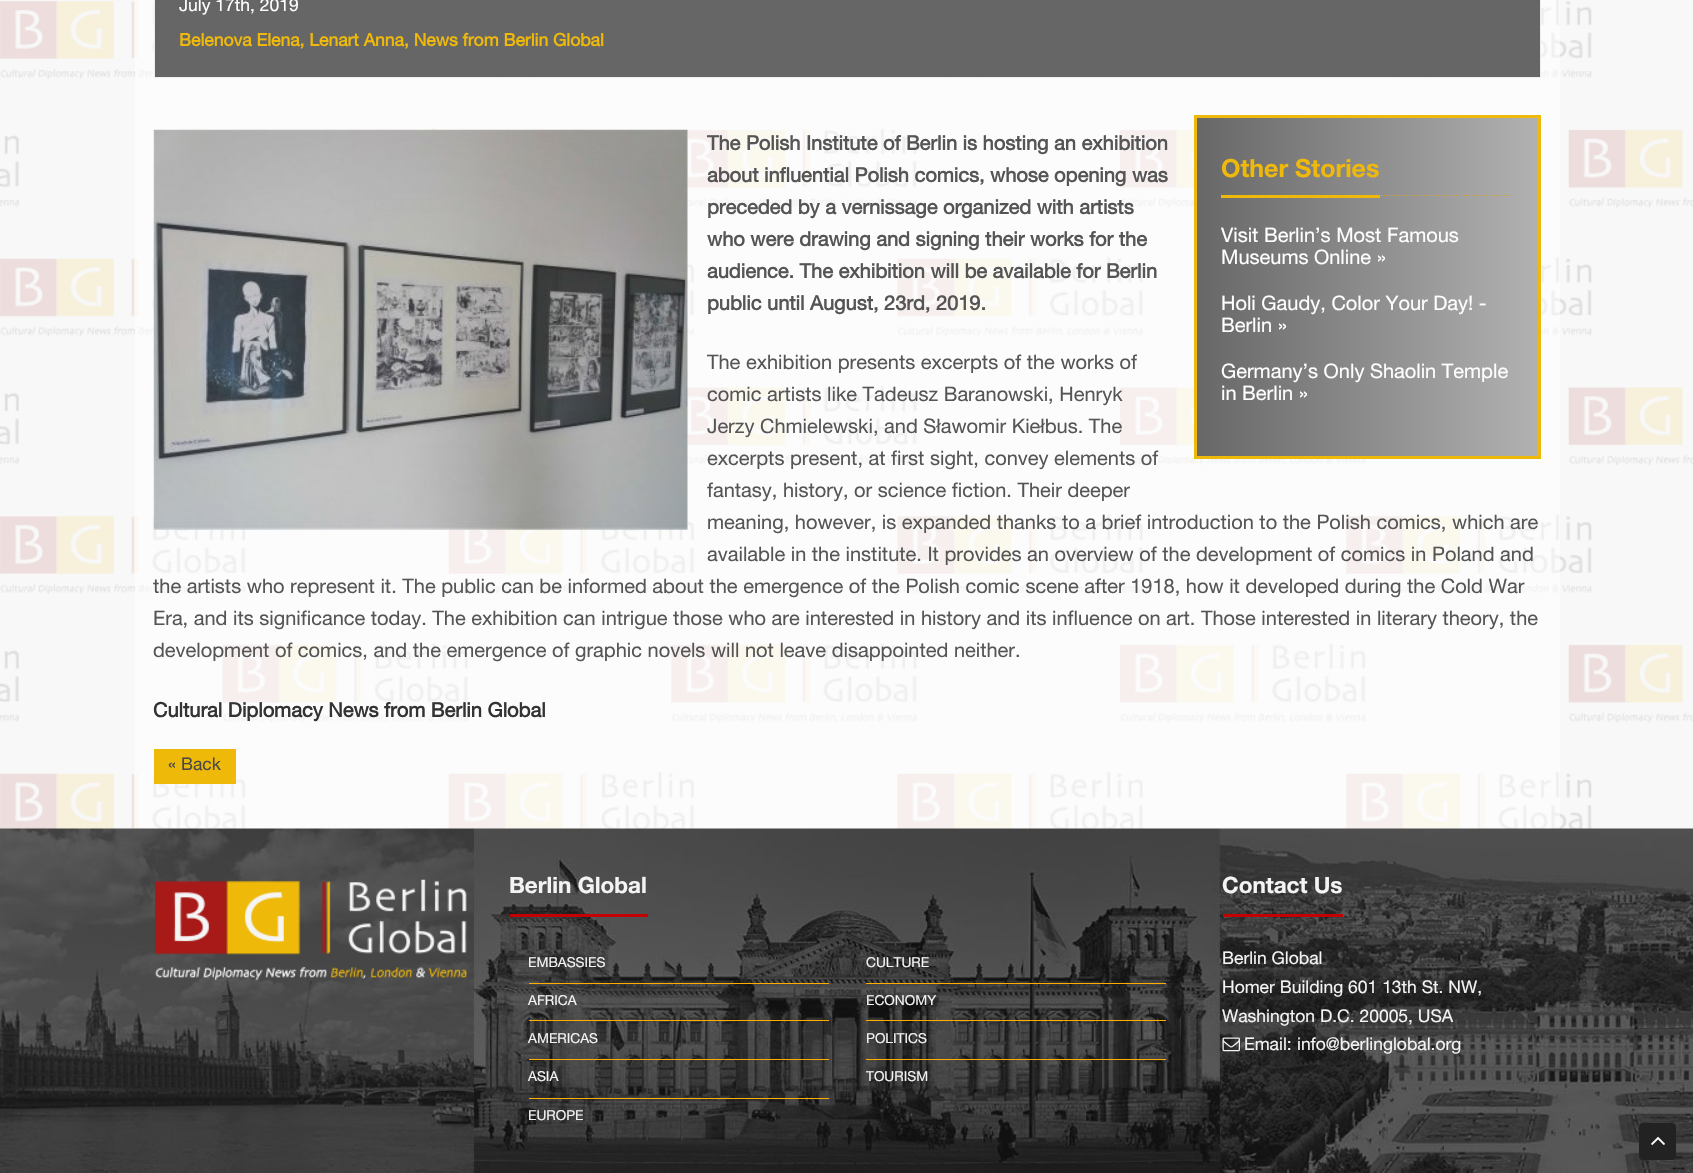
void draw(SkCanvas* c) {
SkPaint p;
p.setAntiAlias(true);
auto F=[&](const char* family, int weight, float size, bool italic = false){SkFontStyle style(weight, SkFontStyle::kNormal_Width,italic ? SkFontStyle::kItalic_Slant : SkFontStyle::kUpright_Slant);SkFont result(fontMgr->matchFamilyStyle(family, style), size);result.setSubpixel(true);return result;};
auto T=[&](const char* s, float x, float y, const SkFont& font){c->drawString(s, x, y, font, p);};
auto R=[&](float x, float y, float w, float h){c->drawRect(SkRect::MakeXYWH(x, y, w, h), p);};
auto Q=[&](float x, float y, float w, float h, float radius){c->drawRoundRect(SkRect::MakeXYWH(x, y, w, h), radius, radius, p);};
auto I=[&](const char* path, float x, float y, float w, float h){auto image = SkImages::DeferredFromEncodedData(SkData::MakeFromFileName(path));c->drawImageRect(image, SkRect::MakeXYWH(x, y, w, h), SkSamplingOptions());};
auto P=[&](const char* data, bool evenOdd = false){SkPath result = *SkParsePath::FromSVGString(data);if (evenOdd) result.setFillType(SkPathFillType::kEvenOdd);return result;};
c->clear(0xffffffff);
I("1.png",0,0,1693,829);
p.setColor(0x80ffffff);
R(135,0,1425,829);
p.setColor(0xff666666);
c->drawRect(SkRect::MakeXYWH(154.5,-.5,1386,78),p);
p.setStroke(true);
p.setStrokeWidth(1);
p.setColor(0xffeeeeee);
c->drawRect(SkRect::MakeXYWH(154.5,-.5,1386,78),p);
auto f1 = F("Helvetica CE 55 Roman",400,17.5);
p.setStroke(false);
p.setColor(0xffffffff);
T("July 17th, 2019",179,11,f1);
auto f2 = F("Helvetica CE 55 Roman",700,17.5);
p.setColor(0xffefb90b);
T("Belenova Elena, Lenart Anna, News from Berlin Global",179,46,f2);
I("2.png",153,129,535,401);
auto f3 = F("Helvetica CE 55 Roman",700,20);
p.setColor(0xff555555);
T("The Polish Institute of Berlin is hosting an exhibition",707,150,f3);
T("about influential Polish comics, whose opening was",707,182,f3);
T("preceded by a vernissage organized with artists",707,214,f3);
T("who were drawing and signing their works for the",707,246,f3);
T("audience. The exhibition will be available for Berlin",707,278,f3);
T("public until August, 23rd, 2019.",707,310,f3);
{
const SkColor colors[] = {0xff676767,0xffb2b2b2};
const float stops[] = {0,1};
const SkPoint ends[] = {{1196,287}, {1539,287}};
p.setShader(SkGradientShader::MakeLinear(ends, colors, stops, 2, SkTileMode::kClamp));
p.setAlpha(255);
}
R(1197,118,341,338);
p.setStroke(true);
p.setStrokeWidth(3);
p.setShader(nullptr);
p.setColor(0xffefb909);
c->drawRect(SkRect::MakeXYWH(1195.5,116.5,344,341),p);
p.setStrokeWidth(1.2);
p.setColor(0xffcfa23f);
p.setPathEffect(SkDashPathEffect::Make({{1.25f,1.25f}}, 0));
c->drawPath(P("M1221 195.5h293"),p);
p.setPathEffect(nullptr);
p.setStroke(false);
p.setColor(0xffefb90b);
R(1221,195,159,3);
auto f4 = F("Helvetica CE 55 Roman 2",700,25);
T("Other Stories",1221,177,f4);
auto f5 = F("Helvetica CE 55 Roman",400,20);
p.setColor(0xffffffff);
T("Visit Berlin’s Most Famous",1221,242,f5);
T("Museums Online »",1221,264,f5);
T("Holi Gaudy, Color Your Day! -",1221,310,f5);
T("Berlin »",1221,332,f5);
T("Germany’s Only Shaolin Temple",1221,378,f5);
T("in Berlin »",1221,400,f5);
p.setColor(0xff555555);
T("The exhibition presents excerpts of the works of",707,369,f5);
T("comic artists like Tadeusz Baranowski, Henryk",707,401,f5);
T("Jerzy Chmielewski, and Sławomir Kiełbus. The",707,433,f5);
T("excerpts present, at first sight, convey elements of",707,465,f5);
T("fantasy, history, or science fiction. Their deeper",707,497,f5);
T("meaning, however, is expanded thanks to a brief introduction to the Polish comics, which are",707,529,f5);
T("available in the institute. It provides an overview of the development of comics in Poland and",707,561,f5);
T("the artists who represent it. The public can be informed about the emergence of the Polish comic scene after 1918, how it developed during the Cold War",153,593,f5);
T("Era, and its significance today. The exhibition can intrigue those who are interested in history and its influence on art. Those interested in literary theory, the",153,625,f5);
T("development of comics, and the emergence of graphic novels will not leave disappointed neither.",153,657,f5);
p.setColor(0xff333333);
T("Cultural Diplomacy News from Berlin Global",153,717,f3);
p.setColor(0xffefb909);
R(154,749,82,35);
p.setColor(0xff494949);
T("« Back",168,770,f1);
I("3.png",0,828,1693,345);
I("4.png",154,879,313,101);
p.setColor(0xffc40000);
R(510,914,138,3);
auto f6 = F("Helvetica CE 55 Roman 2",700,22.5);
p.setColor(0xfff4f4f4);
T("Berlin Global",509,893,f6);
auto f7 = F("Helvetica CE 55 Roman",400,13.75);
T("EMBASSIES",528,967,f7);
p.setColor(0xffffae00);
R(529,983,300,1);
p.setColor(0xfff4f4f4);
T("AFRICA",528,1005,f7);
p.setColor(0xffffae00);
R(529,1020,300,1);
p.setColor(0xfff4f4f4);
T("AMERICAS",528,1043,f7);
p.setColor(0xffffae00);
R(529,1059,300,1);
p.setColor(0xfff4f4f4);
T("ASIA",528,1081,f7);
p.setColor(0xffffae00);
R(529,1098,300,1);
p.setColor(0xfff4f4f4);
T("EUROPE",528,1120,f7);
T("CULTURE",866,967,f7);
p.setColor(0xffffae00);
R(866,983,300,1);
p.setColor(0xfff4f4f4);
T("ECONOMY",866,1005,f7);
p.setColor(0xffffae00);
R(866,1020,300,1);
p.setColor(0xfff4f4f4);
T("POLITICS",866,1043,f7);
p.setColor(0xffffae00);
R(866,1059,300,1);
p.setColor(0xfff4f4f4);
T("TOURISM",866,1081,f7);
p.setColor(0xffc40000);
R(1223,914,120,3);
p.setColor(0xfff4f4f4);
T("Contact Us",1222,893,f6);
T("Berlin Global",1222,964,f1);
T("Homer Building 601 13th St. NW,",1222,993,f1);
T("Washington D.C. 20005, USA",1222,1022,f1);
I("5.png",1222,1037,18,15);
T("Email:",1244,1050,f1);
T("info@berlinglobal.org",1297,1050,f1);
p.setColor(0xff222222);
Q(1639,1123,37,37,4);
I("6.png",1651,1136,14,9);
}
